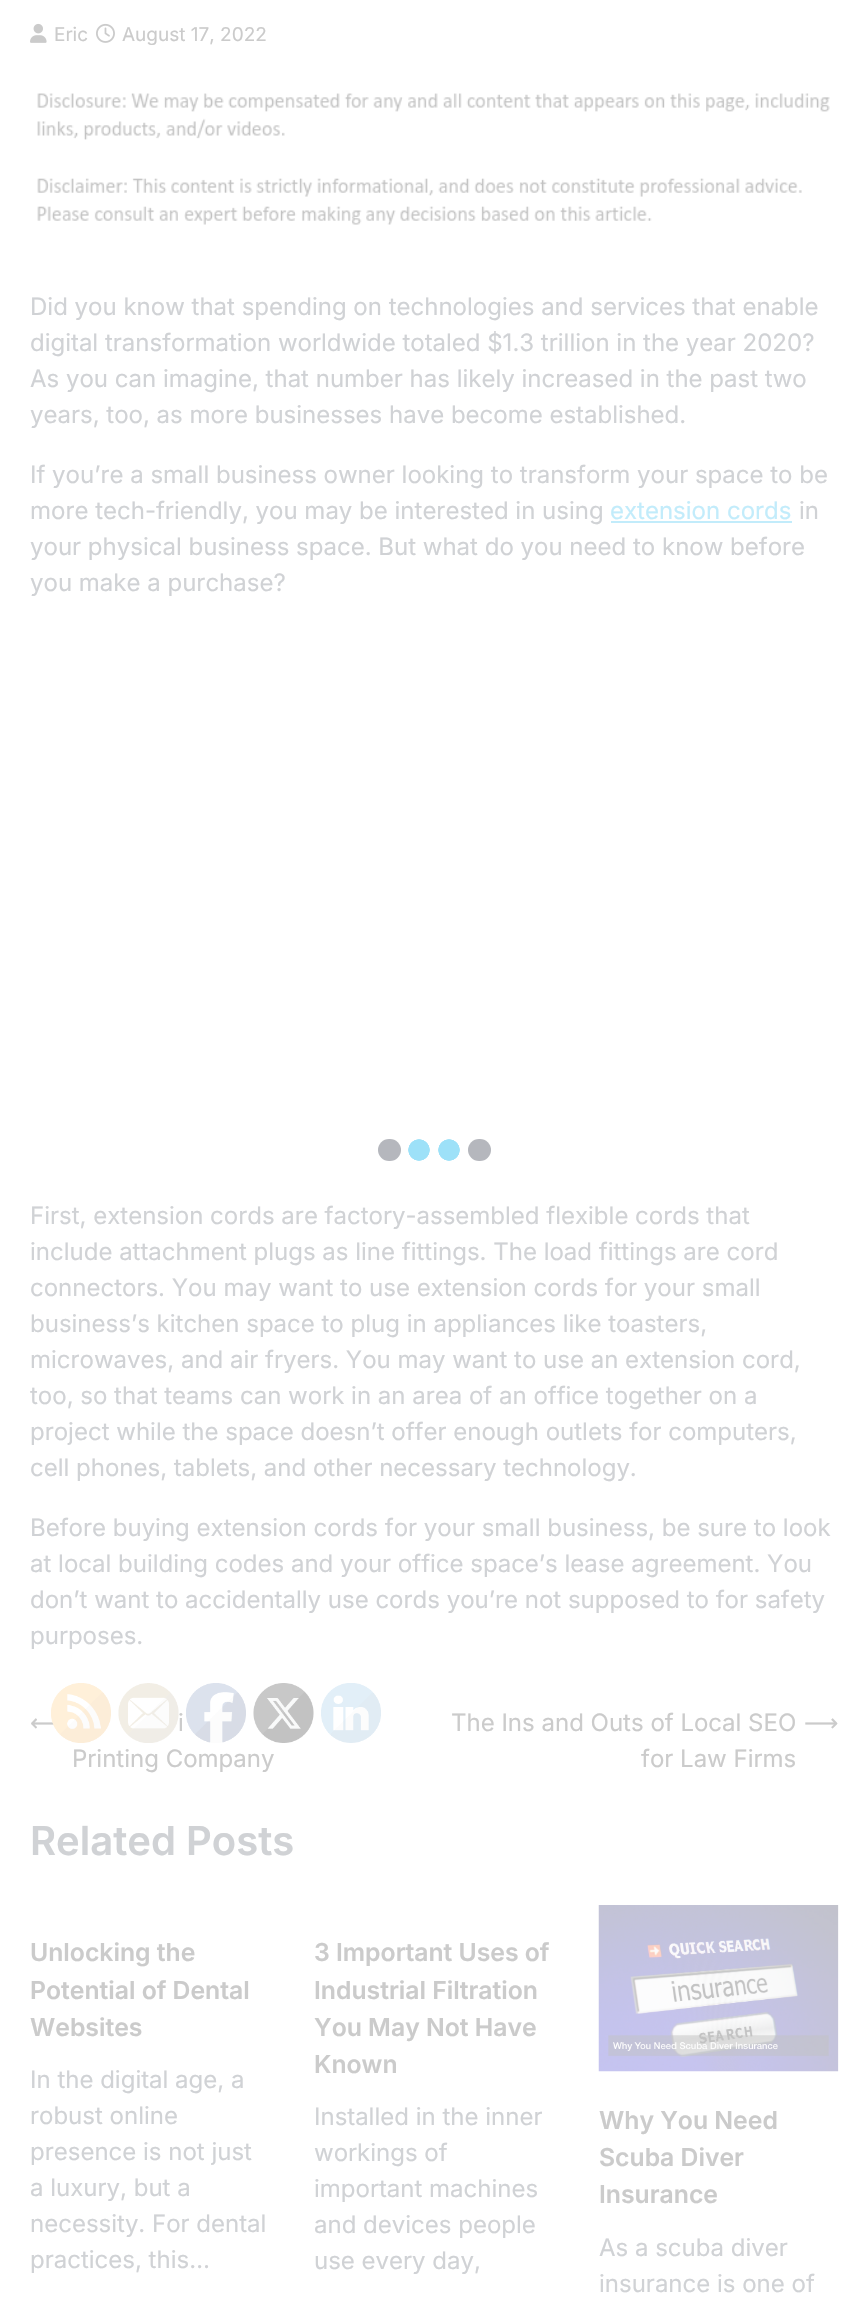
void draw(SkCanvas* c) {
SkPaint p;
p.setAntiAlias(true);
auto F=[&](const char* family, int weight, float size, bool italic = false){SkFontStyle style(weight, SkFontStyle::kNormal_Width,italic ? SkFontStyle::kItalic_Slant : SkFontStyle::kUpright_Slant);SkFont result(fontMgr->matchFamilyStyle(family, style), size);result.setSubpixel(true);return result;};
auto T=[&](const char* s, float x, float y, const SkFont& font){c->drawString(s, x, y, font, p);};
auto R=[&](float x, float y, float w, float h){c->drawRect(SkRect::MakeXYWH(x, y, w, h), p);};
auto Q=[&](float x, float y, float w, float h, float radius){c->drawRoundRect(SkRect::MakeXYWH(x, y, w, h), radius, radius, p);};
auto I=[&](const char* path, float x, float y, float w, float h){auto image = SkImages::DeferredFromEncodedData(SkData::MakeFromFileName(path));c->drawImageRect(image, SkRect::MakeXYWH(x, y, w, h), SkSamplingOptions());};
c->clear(0xffffffff);
I("1.png",30,23,17,20);
auto f1 = F("Inter",400,19);
p.setColor(0xffcbcbcb);
T("Eric",54,41,f1);
I("2.png",96,23,19,20);
T("August 17, 2022",122,41,f1);
I("3.png",37,93,793,132);
auto f2 = F("Inter",400,24);
p.setColor(0xffd0d2d5);
T("Did you know that spending on technologies and services that enable",30,315,f2);
T("digital transformation worldwide totaled $1.3 trillion in the year 2020?",30,351,f2);
T("As you can imagine, that number has likely increased in the past two",30,387,f2);
T("years, too, as more businesses have become established.",30,423,f2);
T("If you’re a small business owner looking to transform your space to be",30,483,f2);
T("more tech-friendly, you may be interested in using",30,519,f2);
p.setColor(0xffc2ecfb);
T("extension cords",610,519,f2);
R(611,521,181,2);
p.setColor(0xffd0d2d5);
T("in",799,519,f2);
T("your physical business space. But what do you need to know before",30,555,f2);
T("you make a purchase?",30,591,f2);
T("First, extension cords are factory-assembled flexible cords that",30,1224,f2);
T("include attachment plugs as line fittings. The load fittings are cord",30,1260,f2);
T("connectors. You may want to use extension cords for your small",30,1296,f2);
T("business’s kitchen space to plug in appliances like toasters,",30,1332,f2);
T("microwaves, and air fryers. You may want to use an extension cord,",30,1368,f2);
T("too, so that teams can work in an area of an office together on a",30,1404,f2);
T("project while the space doesn’t offer enough outlets for computers,",30,1440,f2);
T("cell phones, tablets, and other necessary technology.",30,1476,f2);
T("Before buying extension cords for your small business, be sure to look",30,1536,f2);
T("at local building codes and your office space’s lease agreement. You",30,1572,f2);
T("don’t want to accidentally use cords you’re not supposed to for safety",30,1608,f2);
T("purposes.",30,1644,f2);
auto f3 = F("DejaVu Sans",400,24);
p.setColor(0xffcbcbcb);
T("⟵",30,1731,f3);
T("i",178,1731,f2);
T("Printing Company",72,1767,f2);
T("The Ins and Outs of Local SEO",451,1731,f2);
T("for Law Firms",641,1767,f2);
T("⟶",804,1731,f3);
auto f4 = F("Inter",600,40);
p.setColor(0xffd0d2d5);
T("Related Posts",30,1855,f4);
auto f5 = F("Inter",600,24.75);
p.setColor(0xffcbcbcb);
T("Unlocking the",30,1961,f5);
T("Potential of Dental",30,1999,f5);
T("Websites",30,2036,f5);
p.setColor(0xffd0d2d5);
T("In the digital age, a",30,2088,f2);
T("robust online",30,2124,f2);
T("presence is not just",30,2160,f2);
T("a luxury, but a",30,2196,f2);
T("necessity. For dental",30,2232,f2);
T("practices, this…",30,2268,f2);
p.setColor(0xffcbcbcb);
T("3 Important Uses of",314,1961,f5);
T("Industrial Filtration",314,1999,f5);
T("You May Not Have",314,2036,f5);
T("Known",314,2073,f5);
p.setColor(0xffd0d2d5);
T("Installed in the inner",314,2125,f2);
T("workings of",314,2161,f2);
T("important machines",314,2197,f2);
T("and devices people",314,2233,f2);
T("use every day,",314,2269,f2);
I("4.png",598,1905,241,167);
p.setColor(0xffcbcbcb);
T("Why You Need",599,2129,f5);
T("Scuba Diver",599,2166,f5);
T("Insurance",599,2203,f5);
p.setColor(0xffd0d2d5);
T("As a scuba diver",599,2256,f2);
T("insurance is one of",599,2292,f2);
{
const SkColor colors[] = {0xff9de1f8,0xffffffff};
const float stops[] = {.95,1};
p.setShader(SkGradientShader::MakeRadial({449,1150}, 11, colors, stops, 2, SkTileMode::kClamp));
p.setAlpha(255);
}
R(438,1139,22,22);
{
const SkColor colors[] = {0xff9de1f8,0xffffffff};
const float stops[] = {.95,1};
p.setShader(SkGradientShader::MakeRadial({419,1150}, 11, colors, stops, 2, SkTileMode::kClamp));
p.setAlpha(255);
}
R(408,1139,22,22);
p.setShader(nullptr);
p.setColor(0xffb5b7bd);
Q(378,1139,23,22,11);
Q(468,1139,23,22,11);
I("5.png",51,1683,60,60);
I("6.png",118,1683,61,60);
I("7.png",186,1683,60,60);
I("8.png",253,1683,61,60);
I("9.png",321,1683,60,60);
}
